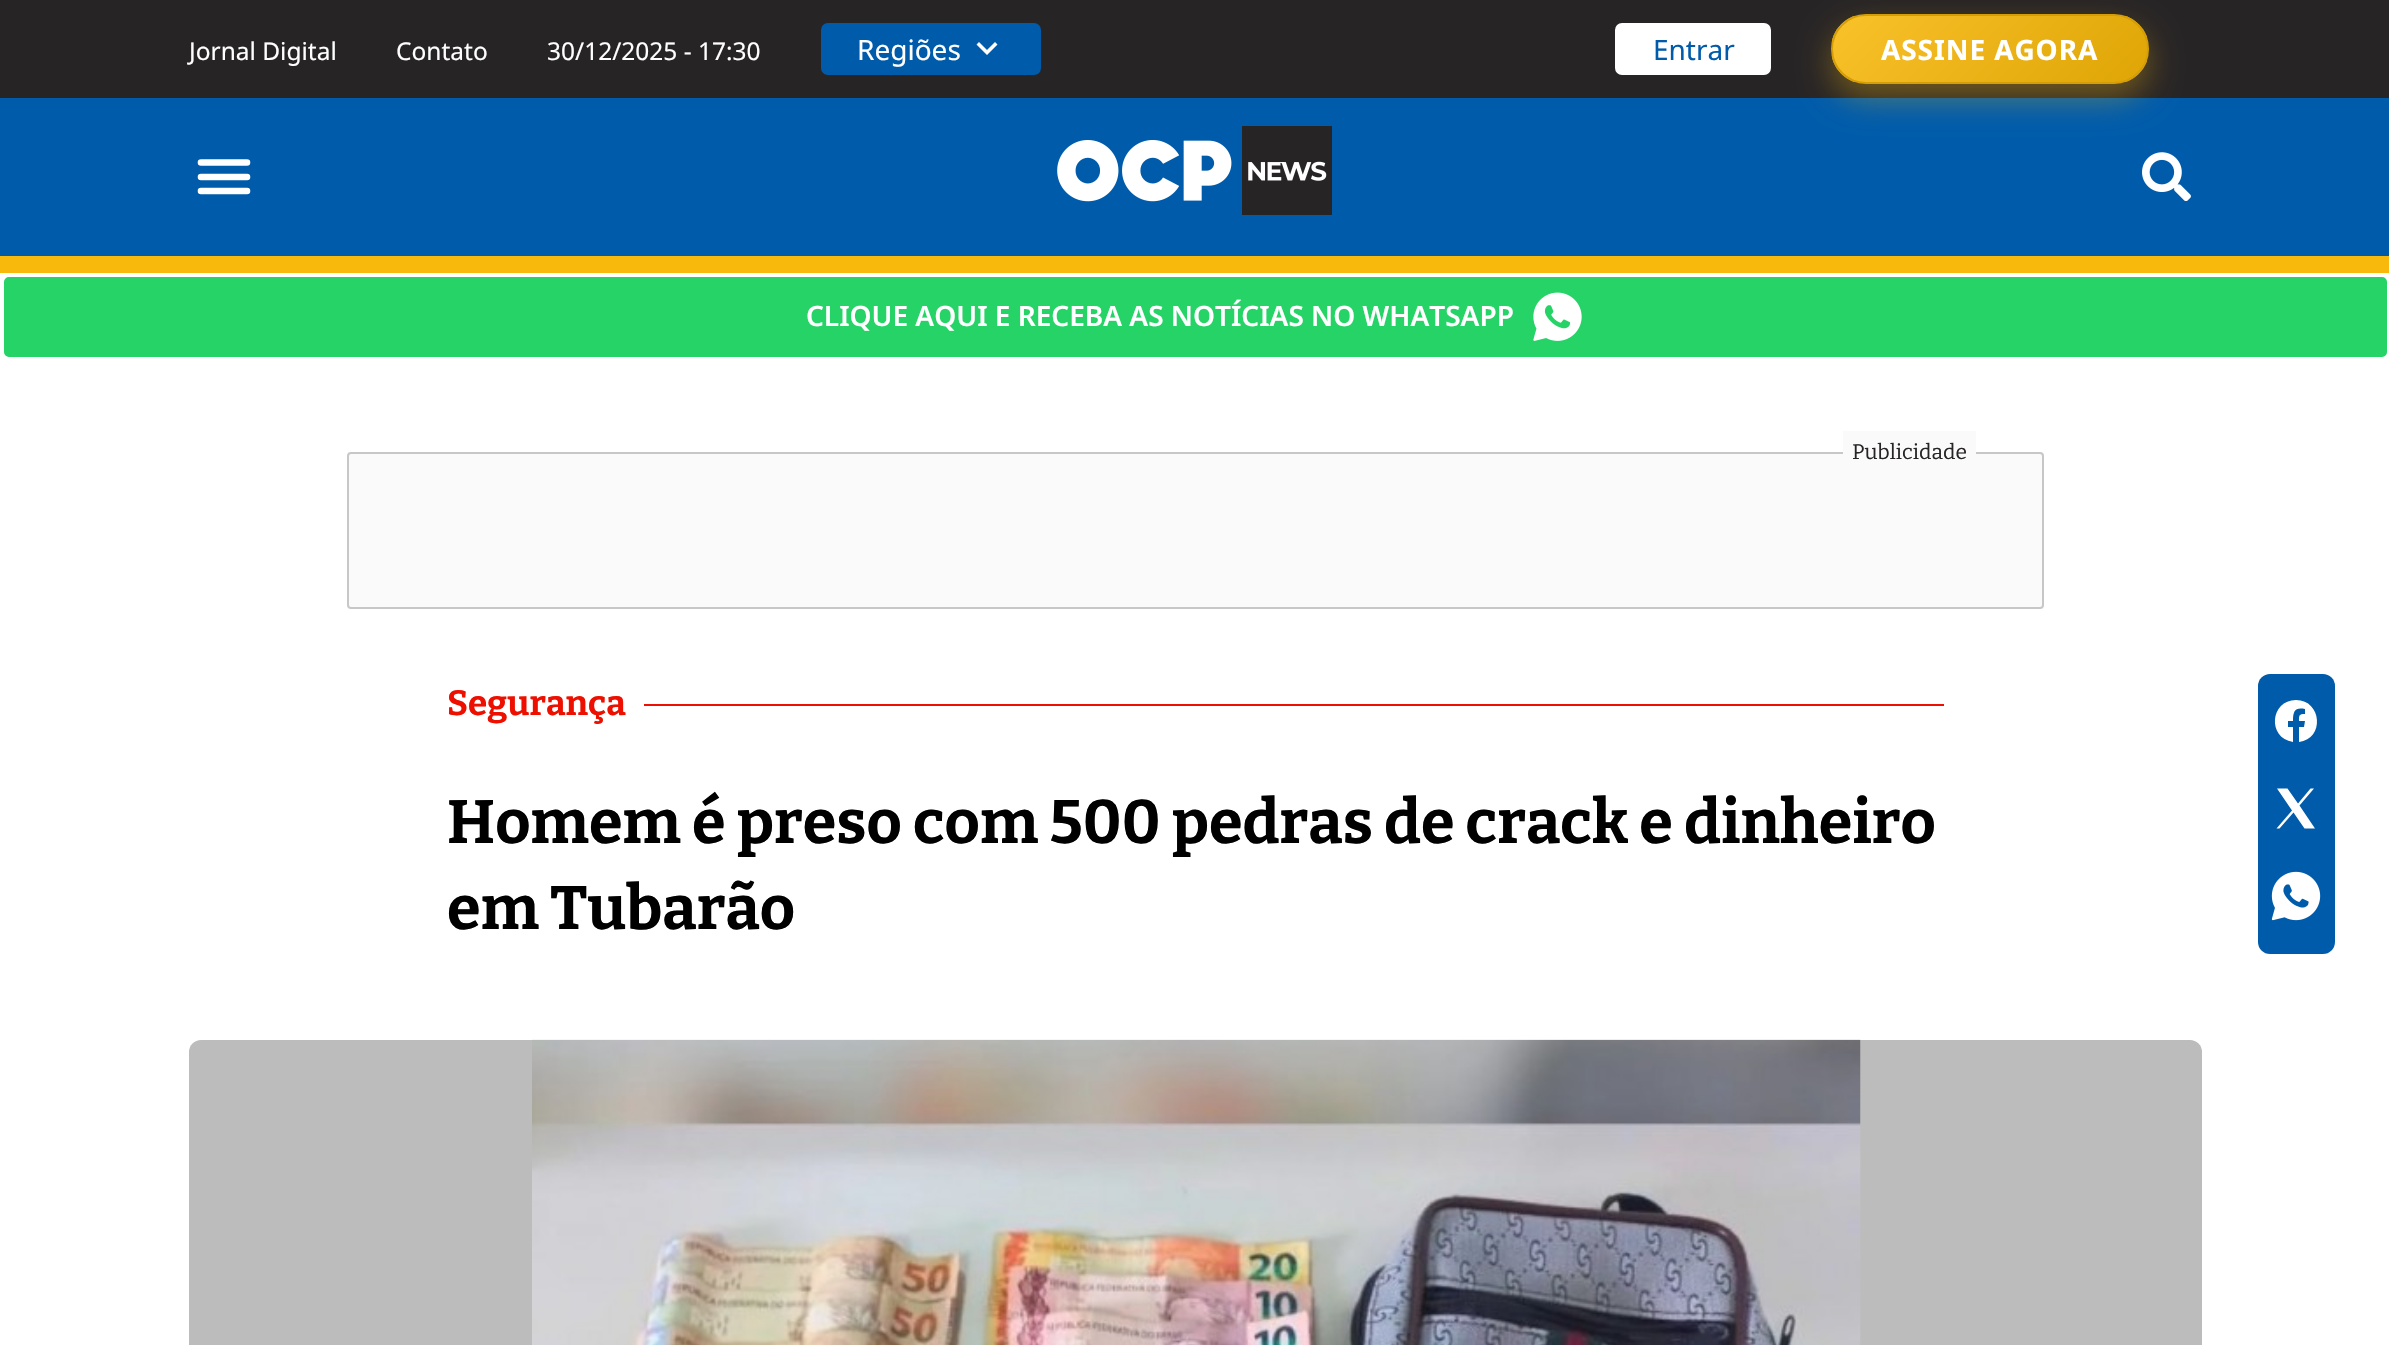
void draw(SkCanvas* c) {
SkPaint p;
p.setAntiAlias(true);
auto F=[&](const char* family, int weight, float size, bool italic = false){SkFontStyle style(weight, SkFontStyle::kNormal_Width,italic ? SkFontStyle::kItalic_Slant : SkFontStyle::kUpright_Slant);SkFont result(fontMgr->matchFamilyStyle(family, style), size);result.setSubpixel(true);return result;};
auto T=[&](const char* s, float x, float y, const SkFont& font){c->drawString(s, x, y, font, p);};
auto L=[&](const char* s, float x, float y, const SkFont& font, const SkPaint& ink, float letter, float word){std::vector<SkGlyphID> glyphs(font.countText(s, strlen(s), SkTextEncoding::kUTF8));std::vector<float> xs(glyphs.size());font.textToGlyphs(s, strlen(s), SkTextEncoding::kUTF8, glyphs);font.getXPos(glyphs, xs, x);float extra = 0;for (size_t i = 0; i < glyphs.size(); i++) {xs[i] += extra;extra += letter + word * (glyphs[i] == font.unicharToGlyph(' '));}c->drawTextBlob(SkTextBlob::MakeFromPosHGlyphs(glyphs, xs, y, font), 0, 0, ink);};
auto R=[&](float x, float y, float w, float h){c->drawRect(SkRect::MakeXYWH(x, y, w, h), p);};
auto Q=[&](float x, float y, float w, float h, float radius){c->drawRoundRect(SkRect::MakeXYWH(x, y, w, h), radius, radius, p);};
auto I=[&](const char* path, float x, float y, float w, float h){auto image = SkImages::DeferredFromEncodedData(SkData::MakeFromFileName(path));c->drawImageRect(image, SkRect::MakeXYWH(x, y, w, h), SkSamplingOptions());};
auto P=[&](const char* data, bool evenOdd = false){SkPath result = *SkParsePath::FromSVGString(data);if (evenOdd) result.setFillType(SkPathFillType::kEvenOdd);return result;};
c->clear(0xffffffff);
p.setColor(0xff272425);
R(0,0,2389,98);
auto f1 = F("Noto Sans",400,24.5);
p.setColor(0xffffffff);
T("Jornal Digital",189,60,f1);
T("Contato",396,60,f1);
T("30/12/2025 - 17:30",547,60,f1);
p.setColor(0xff005baa);
c->drawRoundRect(SkRect::MakeXYWH(822,24,218,50),6,6,p);
p.setStroke(true);
p.setStrokeWidth(2);
c->drawRoundRect(SkRect::MakeXYWH(822,24,218,50),6,6,p);
auto f2 = F("Noto Sans",400,28);
p.setStroke(false);
p.setColor(0xffffffff);
T("Regiões",857,60,f2);
c->drawPath(P("M987 55l-10.5-10.5l2.5-2.5l8 8l8-8l2.5 2.5z"),p);
c->drawRoundRect(SkRect::MakeXYWH(1616,24,154,50),6,6,p);
p.setStroke(true);
c->drawRoundRect(SkRect::MakeXYWH(1616,24,154,50),6,6,p);
p.setStroke(false);
p.setColor(0xff005baa);
T("Entrar",1653,60,f2);
R(0,98,2389,158);
p.setColor(0x59f8b90c);
p.setMaskFilter(SkMaskFilter::MakeBlur(kNormal_SkBlurStyle, 16));
c->drawRoundRect(SkRect::MakeXYWH(1831,28,318,70),35,35,p);
p.setMaskFilter(nullptr);
c->save();
c->clipPath(P("M1866 14h248c19.5 0 35 15.5 35 35c0 19.5-15.5 35-35 35h-248c-19.5 0-35-15.5-35-35c0-19.5 15.5-35 35-35z"),true);
{
const SkColor colors[] = {0xfff9c22a,0xffdfa506};
const float stops[] = {0,1};
const SkPoint ends[] = {{1894,-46}, {2085,144}};
p.setShader(SkGradientShader::MakeLinear(ends, colors, stops, 2, SkTileMode::kClamp));
p.setAlpha(255);
}
R(1832,16,315,66);
c->restore();
p.setStroke(true);
p.setShader(nullptr);
p.setColor(0xffd59e06);
c->drawRoundRect(SkRect::MakeXYWH(1832,15,316,68),34,34,p);
auto f3 = F("Noto Sans",700,28);
p.setStroke(false);
p.setColor(0xffffffff);
L("ASSINE AGORA",1881,60,f3,p,.9,0);
p.setColor(0xfff8b90c);
R(0,256,2389,17);
p.setStroke(true);
p.setStrokeWidth(6.6);
p.setStrokeCap(SkPaint::kRound_Cap);
p.setColor(0xffffffff);
c->drawPath(P("M201 162.5h46m-46 14.5h46m-46 14h46"),p);
I("1.png",1057,126,275,89);
I("2.png",2142,152,49,49);
p.setStroke(false);
p.setColor(0xff25d366);
c->drawRoundRect(SkRect::MakeXYWH(2,275,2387,84),7,7,p);
p.setStroke(true);
p.setStrokeWidth(4);
p.setStrokeCap(SkPaint::kButt_Cap);
p.setColor(0xffffffff);
c->drawRoundRect(SkRect::MakeXYWH(2,275,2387,84),7,7,p);
auto f4 = F("Noto Sans",600,28);
p.setStroke(false);
T("CLIQUE AQUI E RECEBA AS NOTÍCIAS NO WHATSAPP",806,326,f4);
I("3.png",1533,292,49,49);
p.setColor(0xfffafafa);
c->drawRoundRect(SkRect::MakeXYWH(348,453,1695,155),3,3,p);
p.setStroke(true);
p.setStrokeWidth(2);
p.setColor(0xffc7c7c7);
c->drawRoundRect(SkRect::MakeXYWH(348,453,1695,155),3,3,p);
p.setStroke(false);
p.setColor(0xfffafafa);
R(1843,431,133,23);
auto f5 = F("Bitter",400,21);
p.setColor(0xff272425);
T("Publicidade",1852,459,f5);
auto f6 = F("Bitter",700,35);
p.setColor(0xffed0f00);
T("Segurança",447,715,f6);
R(644,704,1300,2);
auto f7 = F("Bitter",700,61.25);
p.setColor(0xff000000);
T("Homem é preso com 500 pedras de crack e dinheiro",447,843,f7);
T("em Tubarão",447,929,f7);
p.setColor(0xff005baa);
Q(2258,674,77,280,12);
p.setColor(0xffffffff);
c->drawPath(P("M2296 700c-26 0-29 38-3 42v-15h-5v-6h5c0-10 2-14 12-12v5c-6 0-6 1-6 7h6l-1 6h-5v15c26-3 23-42-3-42z"),p);
c->drawPath(P("M2277 788.5l15 22l-15.5 18h3l14-16l11 16h10.5l-15.5-23l14.5-17h-3.5l-12.5 15l-10.5-15z"),p);
I("4.png",2271,871,50,50);
p.setColor(0xffbcbcbc);
Q(189,1040,2013,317,12);
I("5.png",532,1039,1329,306);
}
